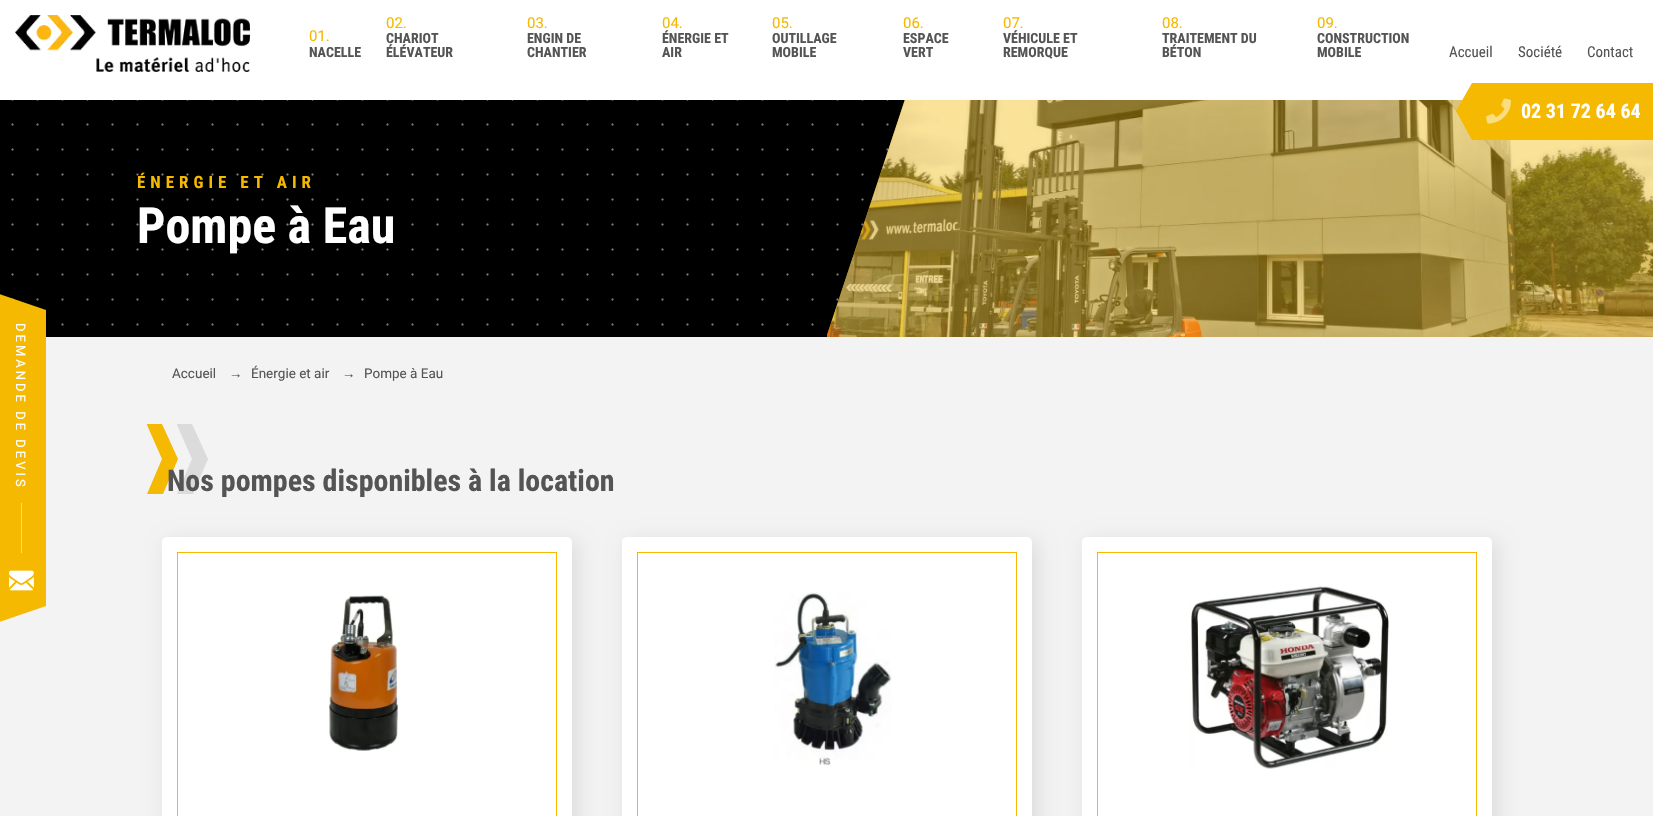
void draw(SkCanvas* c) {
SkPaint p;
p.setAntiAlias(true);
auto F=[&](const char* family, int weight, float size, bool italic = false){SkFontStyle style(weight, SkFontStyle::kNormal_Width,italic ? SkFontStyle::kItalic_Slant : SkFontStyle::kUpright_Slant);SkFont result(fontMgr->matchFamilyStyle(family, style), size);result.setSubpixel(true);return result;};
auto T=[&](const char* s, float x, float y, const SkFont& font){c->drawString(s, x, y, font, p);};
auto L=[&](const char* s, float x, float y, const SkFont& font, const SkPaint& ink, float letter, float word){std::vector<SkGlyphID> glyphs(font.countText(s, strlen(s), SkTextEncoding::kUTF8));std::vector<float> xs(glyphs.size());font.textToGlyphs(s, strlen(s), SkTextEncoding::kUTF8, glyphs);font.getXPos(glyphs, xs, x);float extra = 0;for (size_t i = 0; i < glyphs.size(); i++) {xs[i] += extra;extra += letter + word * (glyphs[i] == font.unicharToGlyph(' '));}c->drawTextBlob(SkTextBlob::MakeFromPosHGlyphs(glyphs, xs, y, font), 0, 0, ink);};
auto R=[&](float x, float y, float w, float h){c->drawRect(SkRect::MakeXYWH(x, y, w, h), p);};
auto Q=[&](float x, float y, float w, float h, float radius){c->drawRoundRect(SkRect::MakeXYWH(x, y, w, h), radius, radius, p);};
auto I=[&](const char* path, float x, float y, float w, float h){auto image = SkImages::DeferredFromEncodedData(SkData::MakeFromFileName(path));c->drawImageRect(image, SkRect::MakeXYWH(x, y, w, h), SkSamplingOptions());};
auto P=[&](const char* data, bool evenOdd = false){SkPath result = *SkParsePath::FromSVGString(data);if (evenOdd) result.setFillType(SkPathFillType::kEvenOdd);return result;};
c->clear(0xfff3f3f3);
p.setColor(0xff000000);
R(0,100,905,237);
p.setStroke(true);
p.setStrokeWidth(1.8);
p.setStrokeCap(SkPaint::kRound_Cap);
p.setColor(0xff5a5a5a);
p.setPathEffect(SkDashPathEffect::Make({{0,25}}, 0));
c->drawPath(P("M12.5 99.5h1625.2"),p);
p.setPathEffect(nullptr);
p.setPathEffect(SkDashPathEffect::Make({{0,25}}, 0));
c->drawPath(P("M12.5 124.5h1625.2"),p);
p.setPathEffect(nullptr);
p.setPathEffect(SkDashPathEffect::Make({{0,25}}, 0));
c->drawPath(P("M12.5 149.5h1625.2"),p);
p.setPathEffect(nullptr);
p.setPathEffect(SkDashPathEffect::Make({{0,25}}, 0));
c->drawPath(P("M12.5 174.5h1625.2"),p);
p.setPathEffect(nullptr);
p.setPathEffect(SkDashPathEffect::Make({{0,25}}, 0));
c->drawPath(P("M12.5 199.5h1625.2"),p);
p.setPathEffect(nullptr);
p.setPathEffect(SkDashPathEffect::Make({{0,25}}, 0));
c->drawPath(P("M12.5 224.5h1625.2"),p);
p.setPathEffect(nullptr);
p.setPathEffect(SkDashPathEffect::Make({{0,25}}, 0));
c->drawPath(P("M12.5 249.5h1625.2"),p);
p.setPathEffect(nullptr);
p.setPathEffect(SkDashPathEffect::Make({{0,25}}, 0));
c->drawPath(P("M12.5 274.5h1625.2"),p);
p.setPathEffect(nullptr);
p.setPathEffect(SkDashPathEffect::Make({{0,25}}, 0));
c->drawPath(P("M12.5 299.5h1625.2"),p);
p.setPathEffect(nullptr);
p.setPathEffect(SkDashPathEffect::Make({{0,25}}, 0));
c->drawPath(P("M12.5 324.5h1625.2"),p);
p.setPathEffect(nullptr);
p.setStrokeWidth(2.1);
p.setColor(0xff7b7b7b);
p.setPathEffect(SkDashPathEffect::Make({{0,25}}, 0));
c->drawPath(P("M12.5 99.5h1625.2"),p);
p.setPathEffect(nullptr);
p.setPathEffect(SkDashPathEffect::Make({{0,25}}, 0));
c->drawPath(P("M12.5 124.5h1625.2"),p);
p.setPathEffect(nullptr);
p.setPathEffect(SkDashPathEffect::Make({{0,25}}, 0));
c->drawPath(P("M12.5 149.5h1625.2"),p);
p.setPathEffect(nullptr);
p.setPathEffect(SkDashPathEffect::Make({{0,25}}, 0));
c->drawPath(P("M12.5 174.5h1625.2"),p);
p.setPathEffect(nullptr);
p.setPathEffect(SkDashPathEffect::Make({{0,25}}, 0));
c->drawPath(P("M12.5 199.5h1625.2"),p);
p.setPathEffect(nullptr);
p.setPathEffect(SkDashPathEffect::Make({{0,25}}, 0));
c->drawPath(P("M12.5 224.5h1625.2"),p);
p.setPathEffect(nullptr);
p.setPathEffect(SkDashPathEffect::Make({{0,25}}, 0));
c->drawPath(P("M12.5 249.5h1625.2"),p);
p.setPathEffect(nullptr);
p.setPathEffect(SkDashPathEffect::Make({{0,25}}, 0));
c->drawPath(P("M12.5 274.5h1625.2"),p);
p.setPathEffect(nullptr);
p.setPathEffect(SkDashPathEffect::Make({{0,25}}, 0));
c->drawPath(P("M12.5 299.5h1625.2"),p);
p.setPathEffect(nullptr);
p.setPathEffect(SkDashPathEffect::Make({{0,25}}, 0));
c->drawPath(P("M12.5 324.5h1625.2"),p);
p.setPathEffect(nullptr);
p.setStroke(false);
p.setColor(0xfff5b901);
c->drawPath(P("M909 87l-82 248v2h826v-250z"),p);
p.setColor(0xffffffff);
R(0,0,1653,100);
I("1.png",15,15,235,57);
auto f1 = F("Roboto",400,15);
p.setColor(0xfff5b901);
T("01.",309,41,f1);
auto f2 = F("Roboto Condensed",700,14);
p.setColor(0xff545454);
T("NACELLE",309,57,f2);
p.setColor(0xfff5b901);
T("02.",386,28,f1);
p.setColor(0xff545454);
T("CHARIOT",386,43,f2);
T("ÉLÉVATEUR",386,57,f2);
p.setColor(0xfff5b901);
T("03.",527,28,f1);
p.setColor(0xff545454);
T("ENGIN DE",527,43,f2);
T("CHANTIER",527,57,f2);
p.setColor(0xfff5b901);
T("04.",662,28,f1);
p.setColor(0xff545454);
T("ÉNERGIE ET",662,43,f2);
T("AIR",662,57,f2);
p.setColor(0xfff5b901);
T("05.",772,28,f1);
p.setColor(0xff545454);
T("OUTILLAGE",772,43,f2);
T("MOBILE",772,57,f2);
p.setColor(0xfff5b901);
T("06.",903,28,f1);
p.setColor(0xff545454);
T("ESPACE",903,43,f2);
T("VERT",903,57,f2);
p.setColor(0xfff5b901);
T("07.",1003,28,f1);
p.setColor(0xff545454);
T("VÉHICULE ET",1003,43,f2);
T("REMORQUE",1003,57,f2);
p.setColor(0xfff5b901);
T("08.",1162,28,f1);
p.setColor(0xff545454);
T("TRAITEMENT DU",1162,43,f2);
T("BÉTON",1162,57,f2);
p.setColor(0xfff5b901);
T("09.",1317,28,f1);
p.setColor(0xff545454);
T("CONSTRUCTION",1317,43,f2);
T("MOBILE",1317,57,f2);
auto f3 = F("Roboto Condensed",400,15);
T("Accueil",1449,57,f3);
T("Société",1518,57,f3);
T("Contact",1587,57,f3);
I("3.png",827,100,826,237);
p.setColor(0xfff5b901);
c->drawPath(P("M1472 83l-16 28l16 29h181v-57z"),p);
I("2.png",1486,98,25,26);
auto f4 = F("Roboto Condensed",700,20);
p.setColor(0xffffffff);
T("02 31 72 64 64",1521,118,f4);
auto f5 = F("Roboto Condensed",700,17);
p.setColor(0xfff5b901);
L("ÉNERGIE ET AIR",137,188,f5,p,5,0);
auto f6 = F("Roboto Condensed",700,50);
p.setColor(0xffffffff);
T("Pompe à Eau",137,243,f6);
p.setColor(0xfff5b901);
c->drawPath(P("M-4 293l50 17v296l-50 17z"),p);
auto f7 = F("Roboto",400,13);
p.setColor(0xffffffff);
c->save();
c->rotate(90,16,323);
L("DEMANDE DE DEVIS",16,323,f7,p,3,0);
c->restore();
p.setColor(0xfffadc80);
R(21,503,1,50);
I("4.png",9,570,25,21);
auto f8 = F("Roboto",400,13.5);
p.setColor(0xff545454);
T("Accueil",172,378,f8);
auto f9 = F("Liberation Serif",400,13.5);
T("→",229,378,f9);
T("Énergie et air",251,378,f8);
T("→",342,378,f9);
T("Pompe à Eau",364,378,f8);
p.setColor(0xfff5b901);
c->drawPath(P("M162 424l16 35l-15 35h-16l15-35l-15-34v-1z"),p);
p.setColor(0xffdbdbdb);
c->drawPath(P("M192 424l16 35l-15 35h-16l15-35l-15-34v-1z"),p);
auto f10 = F("Roboto Condensed",700,30);
p.setColor(0xff545454);
T("Nos pompes disponibles à la location",167,491,f10);
p.setColor(0x1a000000);
p.setMaskFilter(SkMaskFilter::MakeBlur(kNormal_SkBlurStyle, 10));
c->drawRoundRect(SkRect::MakeXYWH(167,542,410,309),5,5,p);
p.setMaskFilter(nullptr);
p.setColor(0xffffffff);
Q(162,537,410,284,5);
I("5.png",327,595,72,156);
p.setStroke(true);
p.setStrokeWidth(1);
p.setStrokeCap(SkPaint::kButt_Cap);
p.setColor(0xfff5b901);
c->drawRect(SkRect::MakeXYWH(177.5,552.5,379,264),p);
p.setStroke(false);
p.setColor(0x1a000000);
p.setMaskFilter(SkMaskFilter::MakeBlur(kNormal_SkBlurStyle, 10));
c->drawRoundRect(SkRect::MakeXYWH(627,542,410,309),5,5,p);
p.setMaskFilter(nullptr);
p.setColor(0xffffffff);
Q(622,537,410,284,5);
I("6.png",774,592,118,174);
p.setStroke(true);
p.setColor(0xfff5b901);
c->drawRect(SkRect::MakeXYWH(637.5,552.5,379,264),p);
p.setStroke(false);
p.setColor(0x1a000000);
p.setMaskFilter(SkMaskFilter::MakeBlur(kNormal_SkBlurStyle, 10));
c->drawRoundRect(SkRect::MakeXYWH(1087,542,410,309),5,5,p);
p.setMaskFilter(nullptr);
p.setColor(0xffffffff);
Q(1082,537,410,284,5);
I("7.png",1190,586,199,183);
p.setStroke(true);
p.setColor(0xfff5b901);
c->drawRect(SkRect::MakeXYWH(1097.5,552.5,379,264),p);
}
